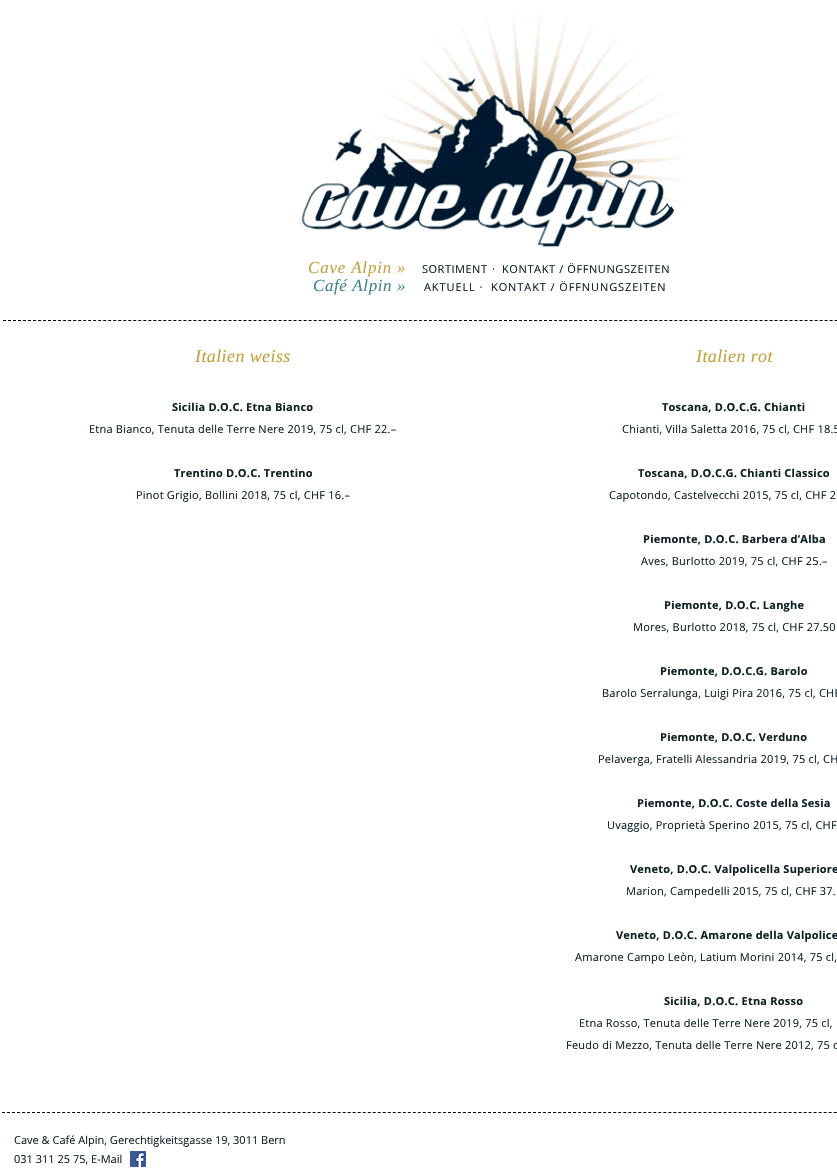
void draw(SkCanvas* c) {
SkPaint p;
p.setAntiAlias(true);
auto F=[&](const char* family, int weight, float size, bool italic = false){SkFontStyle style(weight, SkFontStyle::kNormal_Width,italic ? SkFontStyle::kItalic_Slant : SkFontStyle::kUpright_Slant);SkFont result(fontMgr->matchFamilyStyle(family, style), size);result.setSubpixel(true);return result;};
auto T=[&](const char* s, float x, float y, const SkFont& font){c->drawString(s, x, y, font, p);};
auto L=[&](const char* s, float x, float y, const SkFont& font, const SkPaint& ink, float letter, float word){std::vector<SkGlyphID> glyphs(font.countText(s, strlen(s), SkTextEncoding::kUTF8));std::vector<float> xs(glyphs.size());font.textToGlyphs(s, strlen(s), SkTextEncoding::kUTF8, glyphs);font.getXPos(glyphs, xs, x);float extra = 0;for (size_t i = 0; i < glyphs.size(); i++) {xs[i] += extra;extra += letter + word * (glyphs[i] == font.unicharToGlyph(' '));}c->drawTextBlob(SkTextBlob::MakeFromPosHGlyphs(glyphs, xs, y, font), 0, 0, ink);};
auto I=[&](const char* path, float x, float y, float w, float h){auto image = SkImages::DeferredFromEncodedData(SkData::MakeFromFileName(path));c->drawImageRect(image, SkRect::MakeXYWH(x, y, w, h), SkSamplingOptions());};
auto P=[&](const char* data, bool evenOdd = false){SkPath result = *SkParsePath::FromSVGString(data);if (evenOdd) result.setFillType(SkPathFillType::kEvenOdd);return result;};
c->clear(0xffffffff);
I("1.png",293,0,390,6);
I("2.png",293,6,391,242);
auto f1 = F("Liberation Serif",400,17,true);
p.setColor(0xffc3a23e);
L("Cave Alpin »",308,273,f1,p,.8,0);
auto f2 = F("Open Sans",400,11);
p.setColor(0xff0d2123);
L("SORTIMENT",422,273,f2,p,.5,0);
L("·",492,273,f2,p,.6,0);
L("KONTAKT / ÖFFNUNGSZEITEN",502,273,f2,p,.6,0);
p.setColor(0xff42858c);
L("Café Alpin »",313,291,f1,p,.6,0);
p.setColor(0xff0d2123);
L("AKTUELL ·",424,291,f2,p,.9,0);
L("KONTAKT / ÖFFNUNGSZEITEN",491,291,f2,p,.9,0);
p.setStroke(true);
p.setStrokeWidth(1);
p.setColor(0xff000000);
p.setPathEffect(SkDashPathEffect::Make({{3,2.01f}}, 0));
c->drawPath(P("M3 320.5h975"),p);
p.setPathEffect(nullptr);
auto f3 = F("Liberation Serif",400,18,true);
p.setStroke(false);
p.setColor(0xffc3a23e);
L("Italien weiss",195,362,f3,p,.4,0);
auto f4 = F("Open Sans",700,11);
p.setColor(0xff0d2123);
L("Sicilia D.O.C. Etna Bianco",172,411,f4,p,.22,0);
L("Etna Bianco, Tenuta delle Terre Nere 2019, 75 cl, CHF 22.–",89,433,f2,p,.22,0);
L("Trentino D.O.C. Trentino",174,477,f4,p,.22,0);
L("Pinot Grigio, Bollini 2018, 75 cl, CHF 16.–",136,499,f2,p,.22,0);
p.setColor(0xffc3a23e);
L("Italien rot",696,362,f3,p,.4,0);
p.setColor(0xff0d2123);
L("Toscana, D.O.C.G. Chianti",662,411,f4,p,.22,0);
L("Chianti, Villa Saletta 2016, 75 cl, CHF 18.5",622,433,f2,p,.22,0);
L("Toscana, D.O.C.G. Chianti Classico",638,477,f4,p,.22,0);
L("Capotondo, Castelvecchi 2015, 75 cl, CHF 2",609,499,f2,p,.22,0);
L("Piemonte, D.O.C. Barbera d’Alba",643,543,f4,p,.22,0);
L("Aves, Burlotto 2019, 75 cl, CHF 25.–",641,565,f2,p,.22,0);
L("Piemonte, D.O.C. Langhe",664,609,f4,p,.22,0);
L("Mores, Burlotto 2018, 75 cl, CHF 27.50",633,631,f2,p,.22,0);
L("Piemonte, D.O.C.G. Barolo",660,675,f4,p,.22,0);
L("Barolo Serralunga, Luigi Pira 2016, 75 cl, CHF",602,697,f2,p,.22,0);
L("Piemonte, D.O.C. Verduno",660,741,f4,p,.22,0);
L("Pelaverga, Fratelli Alessandria 2019, 75 cl, CH",598,763,f2,p,.22,0);
L("Piemonte, D.O.C. Coste della Sesia",637,807,f4,p,.22,0);
L("Uvaggio, Proprietà Sperino 2015, 75 cl, CHF",607,829,f2,p,.22,0);
L("Veneto, D.O.C. Valpolicella Superiore",630,873,f4,p,.22,0);
L("Marion, Campedelli 2015, 75 cl, CHF 37.",626,895,f2,p,.22,0);
L("Veneto, D.O.C. Amarone della Valpolice",616,939,f4,p,.22,0);
L("Amarone Campo Leòn, Latium Morini 2014, 75 cl,",575,961,f2,p,.22,0);
L("Sicilia, D.O.C. Etna Rosso",664,1005,f4,p,.22,0);
L("Etna Rosso, Tenuta delle Terre Nere 2019, 75 cl,",579,1027,f2,p,.22,0);
L("Feudo di Mezzo, Tenuta delle Terre Nere 2012, 75 c",566,1049,f2,p,.22,0);
p.setStroke(true);
p.setColor(0xff000000);
p.setPathEffect(SkDashPathEffect::Make({{3,2.01f}}, 0));
c->drawPath(P("M2 1112.5h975"),p);
p.setPathEffect(nullptr);
p.setStroke(false);
p.setColor(0xff0d2123);
T("Cave & Café Alpin, Gerechtigkeitsgasse 19, 3011 Bern",14,1144,f2);
T("031 311 25 75, E-Mail",14,1163,f2);
I("3.png",130,1151,16,16);
}
